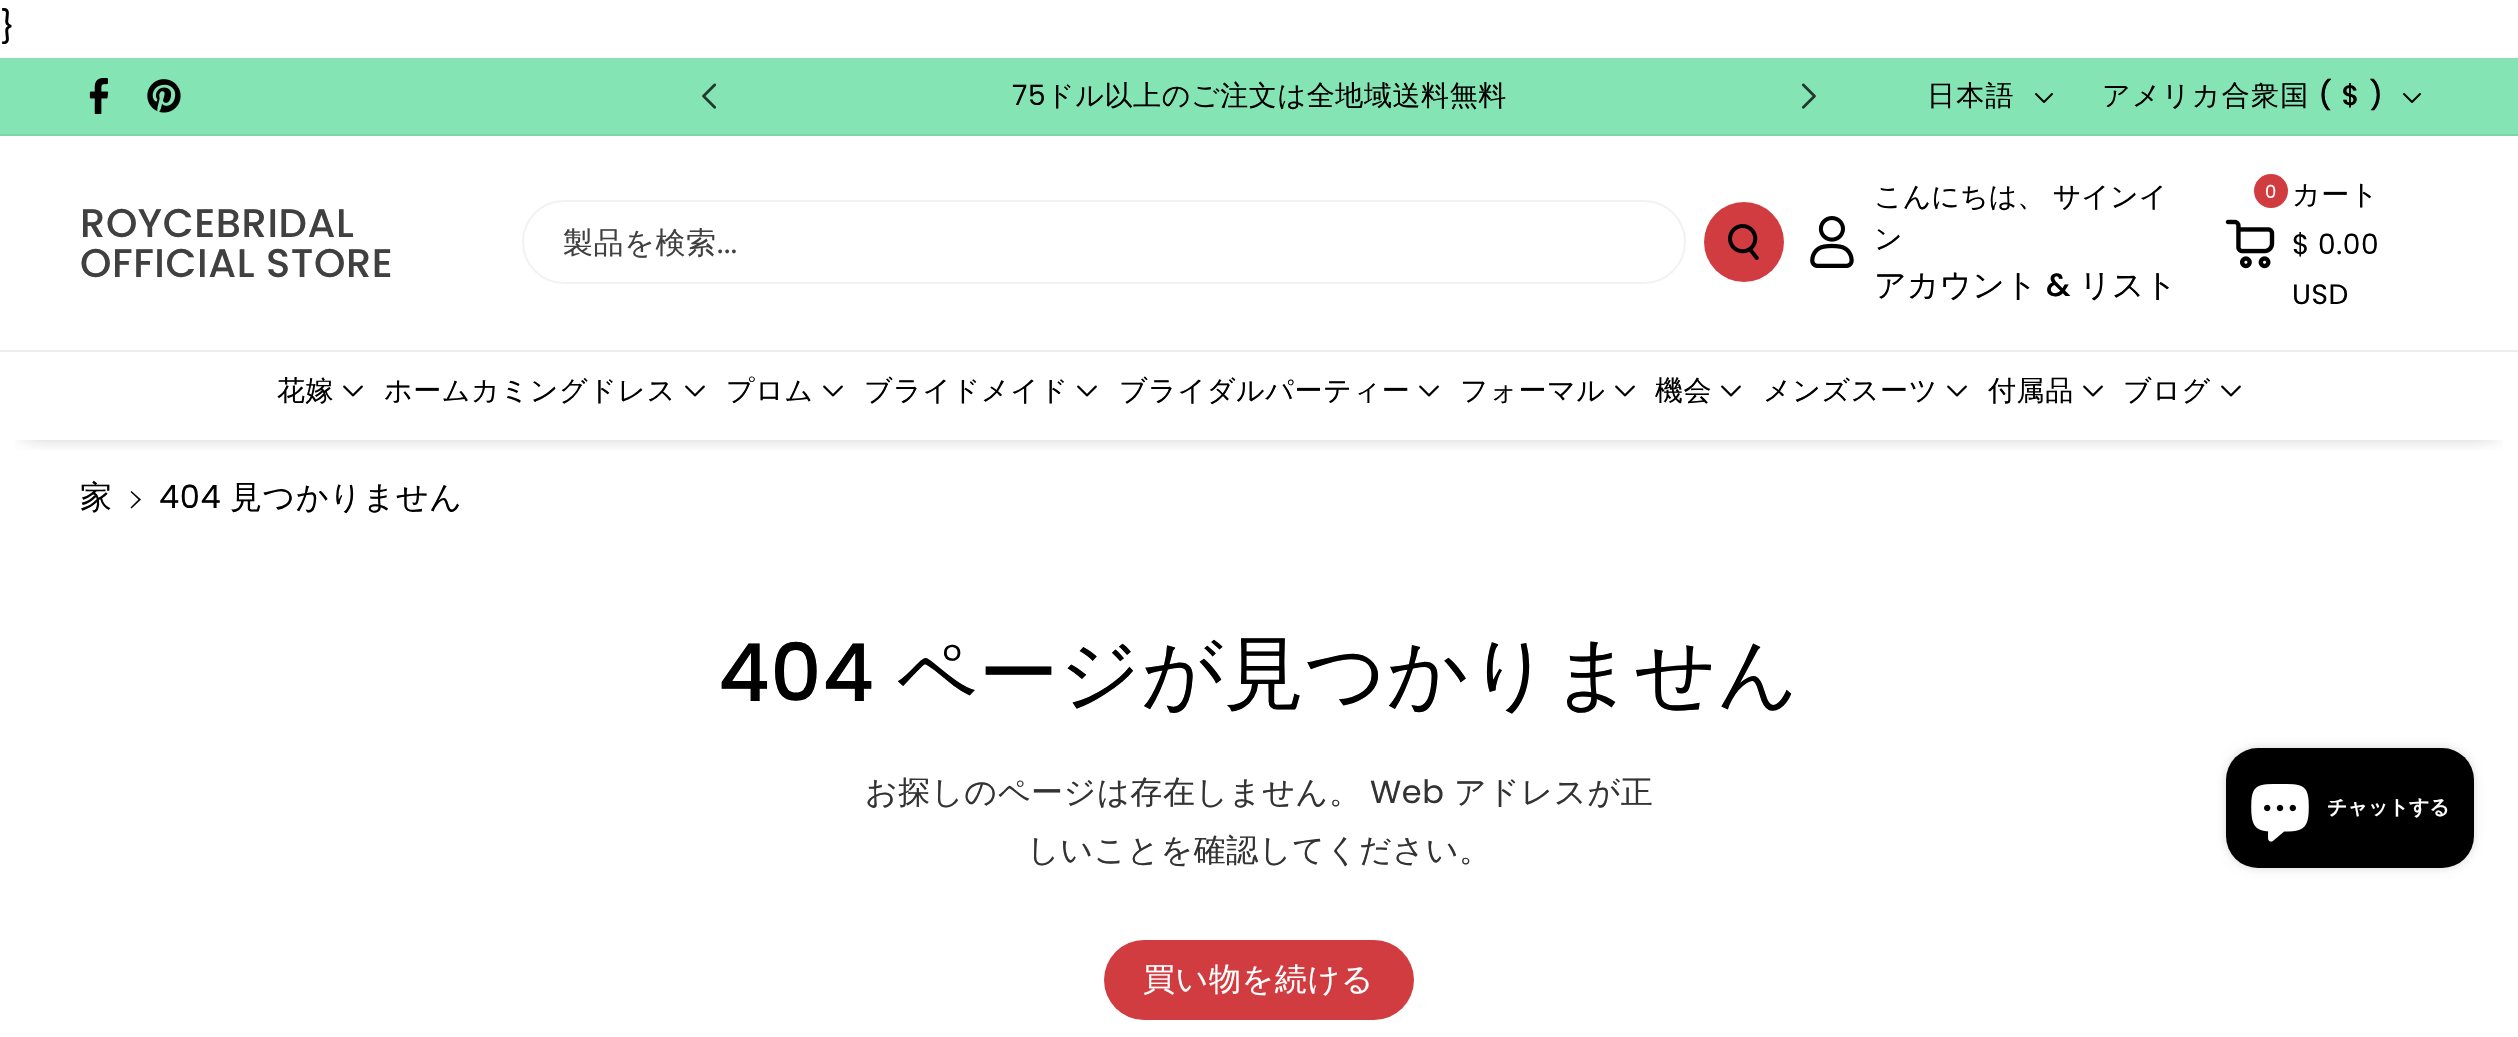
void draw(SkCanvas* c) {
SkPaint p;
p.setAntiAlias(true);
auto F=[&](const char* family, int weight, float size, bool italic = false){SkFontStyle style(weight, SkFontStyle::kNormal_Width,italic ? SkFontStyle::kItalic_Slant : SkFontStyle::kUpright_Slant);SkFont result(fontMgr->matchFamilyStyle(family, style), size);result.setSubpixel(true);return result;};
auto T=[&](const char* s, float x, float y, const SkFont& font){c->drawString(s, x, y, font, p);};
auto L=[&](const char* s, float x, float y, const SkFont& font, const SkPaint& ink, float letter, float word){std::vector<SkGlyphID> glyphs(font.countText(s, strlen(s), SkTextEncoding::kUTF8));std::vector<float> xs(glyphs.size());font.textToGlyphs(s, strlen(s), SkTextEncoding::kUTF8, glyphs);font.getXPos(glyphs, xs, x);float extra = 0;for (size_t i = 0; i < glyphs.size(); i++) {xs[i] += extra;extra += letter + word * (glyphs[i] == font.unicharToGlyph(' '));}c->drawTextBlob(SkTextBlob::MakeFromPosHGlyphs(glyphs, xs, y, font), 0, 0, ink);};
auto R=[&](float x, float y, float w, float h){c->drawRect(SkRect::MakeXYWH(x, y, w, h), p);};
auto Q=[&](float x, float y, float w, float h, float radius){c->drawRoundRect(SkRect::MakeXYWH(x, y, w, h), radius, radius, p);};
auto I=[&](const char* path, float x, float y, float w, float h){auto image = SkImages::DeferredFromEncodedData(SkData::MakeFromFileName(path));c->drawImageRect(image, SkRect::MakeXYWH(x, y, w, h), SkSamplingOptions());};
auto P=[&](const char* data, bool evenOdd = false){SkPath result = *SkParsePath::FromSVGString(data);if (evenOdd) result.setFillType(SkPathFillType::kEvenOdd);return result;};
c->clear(0xffffffff);
auto f1 = F("Poppins",400,32);
p.setColor(0xff000000);
L("}",0,38,f1,p,.6,0);
p.setColor(0xff85e4b4);
R(0,58,2518,76);
p.setColor(0xff7cd4a7);
R(0,134,2518,2);
I("1.png",89,78,20,36);
I("2.png",147,79,34,34);
I("3.png",702,83,15,26);
auto f2 = F("Poppins",400,28);
p.setColor(0xff000000);
L("75",1012,105,f2,p,.6,0);
auto f3 = F("WenQuanYi Zen Hei",500,28);
L("ドル以上のご注文は全地域送料無料",1046,105,f3,p,.6,0);
I("4.png",1801,83,15,26);
L("日本語",1927,105,f3,p,1.25,0);
I("5.png",2035,93,18,10);
L("アメリカ合衆国",2102,105,f3,p,1.25,0);
auto f4 = F("Poppins",500,28);
L("( $ )",2318,105,f4,p,1.25,0);
I("5.png",2403,93,18,10);
c->save();
c->clipRect(SkRect::MakeXYWH(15,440,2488,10));
p.setColor(0x99121212);
p.setMaskFilter(SkMaskFilter::MakeBlur(kNormal_SkBlurStyle, 12));
c->drawRect(SkRect::MakeXYWH(24,172,2470,256),p);
p.setMaskFilter(nullptr);
c->restore();
auto f5 = F("Poppins",500,40);
p.setColor(0xff404040);
L("ROYCEBRIDAL",80,237,f5,p,.6,0);
L("OFFICIAL STORE",80,277,f5,p,.6,0);
p.setStroke(true);
p.setStrokeWidth(2);
p.setColor(0xfff2f2f2);
c->drawRoundRect(SkRect::MakeXYWH(523,201,1162,82),41,41,p);
auto f6 = F("WenQuanYi Zen Hei",500,30);
p.setStroke(false);
p.setColor(0xff404040);
L("製品を検索",563,253,f6,p,.6,0);
auto f7 = F("Poppins",400,30);
L("...",717,253,f7,p,.6,0);
p.setColor(0xffd03c3f);
c->drawCircle(1744,242,40,p);
I("6.png",1728,224,31,36);
I("7.png",1810,216,44,52);
p.setColor(0xff000000);
L("こんにちは、 サインイ",1874,206,f3,p,0,-1);
T("ン",1874,248,f3);
auto f8 = F("WenQuanYi Zen Hei",500,32);
T("アカウント",1874,296,f8);
auto f9 = F("Poppins",500,32);
T("&",2046,296,f9);
T("リスト",2079,296,f8);
p.setColor(0xffd03c3f);
c->drawCircle(2271,191,17,p);
auto f10 = F("Poppins",400,18);
p.setColor(0xffffffff);
L("0",2265,198,f10,p,.6,0);
p.setColor(0xff000000);
L("カート",2292,204,f3,p,.6,0);
L("$ 0.00",2292,254,f2,p,.6,0);
L("USD",2292,304,f2,p,.6,0);
I("8.png",2225,219,50,50);
p.setColor(0xffededed);
R(0,350,2518,2);
p.setColor(0xff000000);
L("花嫁",277,400,f3,p,.6,0);
I("9.png",343,385,20,12);
L("ホームカミングドレス",384,400,f3,p,.6,0);
I("9.png",685,385,20,12);
L("プロム",726,400,f3,p,.6,0);
I("9.png",823,385,20,12);
L("ブライドメイド",864,400,f3,p,.6,0);
I("9.png",1077,385,20,12);
L("ブライダルパーティー",1119,400,f3,p,.6,0);
I("9.png",1419,385,20,12);
L("フォーマル",1460,400,f3,p,.6,0);
I("9.png",1615,385,20,12);
L("機会",1655,400,f3,p,.6,0);
I("9.png",1721,385,20,12);
L("メンズスーツ",1763,400,f3,p,.6,0);
I("9.png",1947,385,20,12);
L("付属品",1988,400,f3,p,.6,0);
I("9.png",2083,385,20,12);
L("ブログ",2123,400,f3,p,.6,0);
I("9.png",2221,385,20,12);
L("家",80,508,f8,p,.6,0);
c->drawPath(P("M130.5 507.5l1 1l9.5-9l-9.5-8.5l-1 1l8 7.5z"),p);
L("404",159,508,f1,p,.6,0);
L("見つかりません",230,508,f8,p,.6,0);
auto f11 = F("Poppins",500,80);
L("404",718,701,f11,p,.6,0);
auto f12 = F("WenQuanYi Zen Hei",500,80);
L("ページが見つかりません",896,701,f12,p,.6,0);
p.setColor(0xff333333);
L("お探しのページは存在しません。",865,803,f8,p,.6,0);
L("Web",1370,803,f1,p,.6,0);
L("アドレスが正",1454,803,f8,p,.6,0);
L("しいことを確認してください。",1027,861,f8,p,.6,0);
p.setColor(0xffd03c3f);
Q(1104,940,310,80,40);
p.setColor(0xffffffff);
L("買い物を続ける",1143,990,f8,p,.6,0);
p.setColor(0x26000000);
p.setMaskFilter(SkMaskFilter::MakeBlur(kNormal_SkBlurStyle, 5));
c->drawRoundRect(SkRect::MakeXYWH(2226,748,248,120),32,32,p);
p.setMaskFilter(nullptr);
p.setColor(0xff000000);
Q(2226,748,248,120,32);
I("10.png",2251,784,58,58);
auto f13 = F("WenQuanYi Zen Hei",700,20);
p.setColor(0xffffffff);
T("チャットする",2327,814,f13);
}
